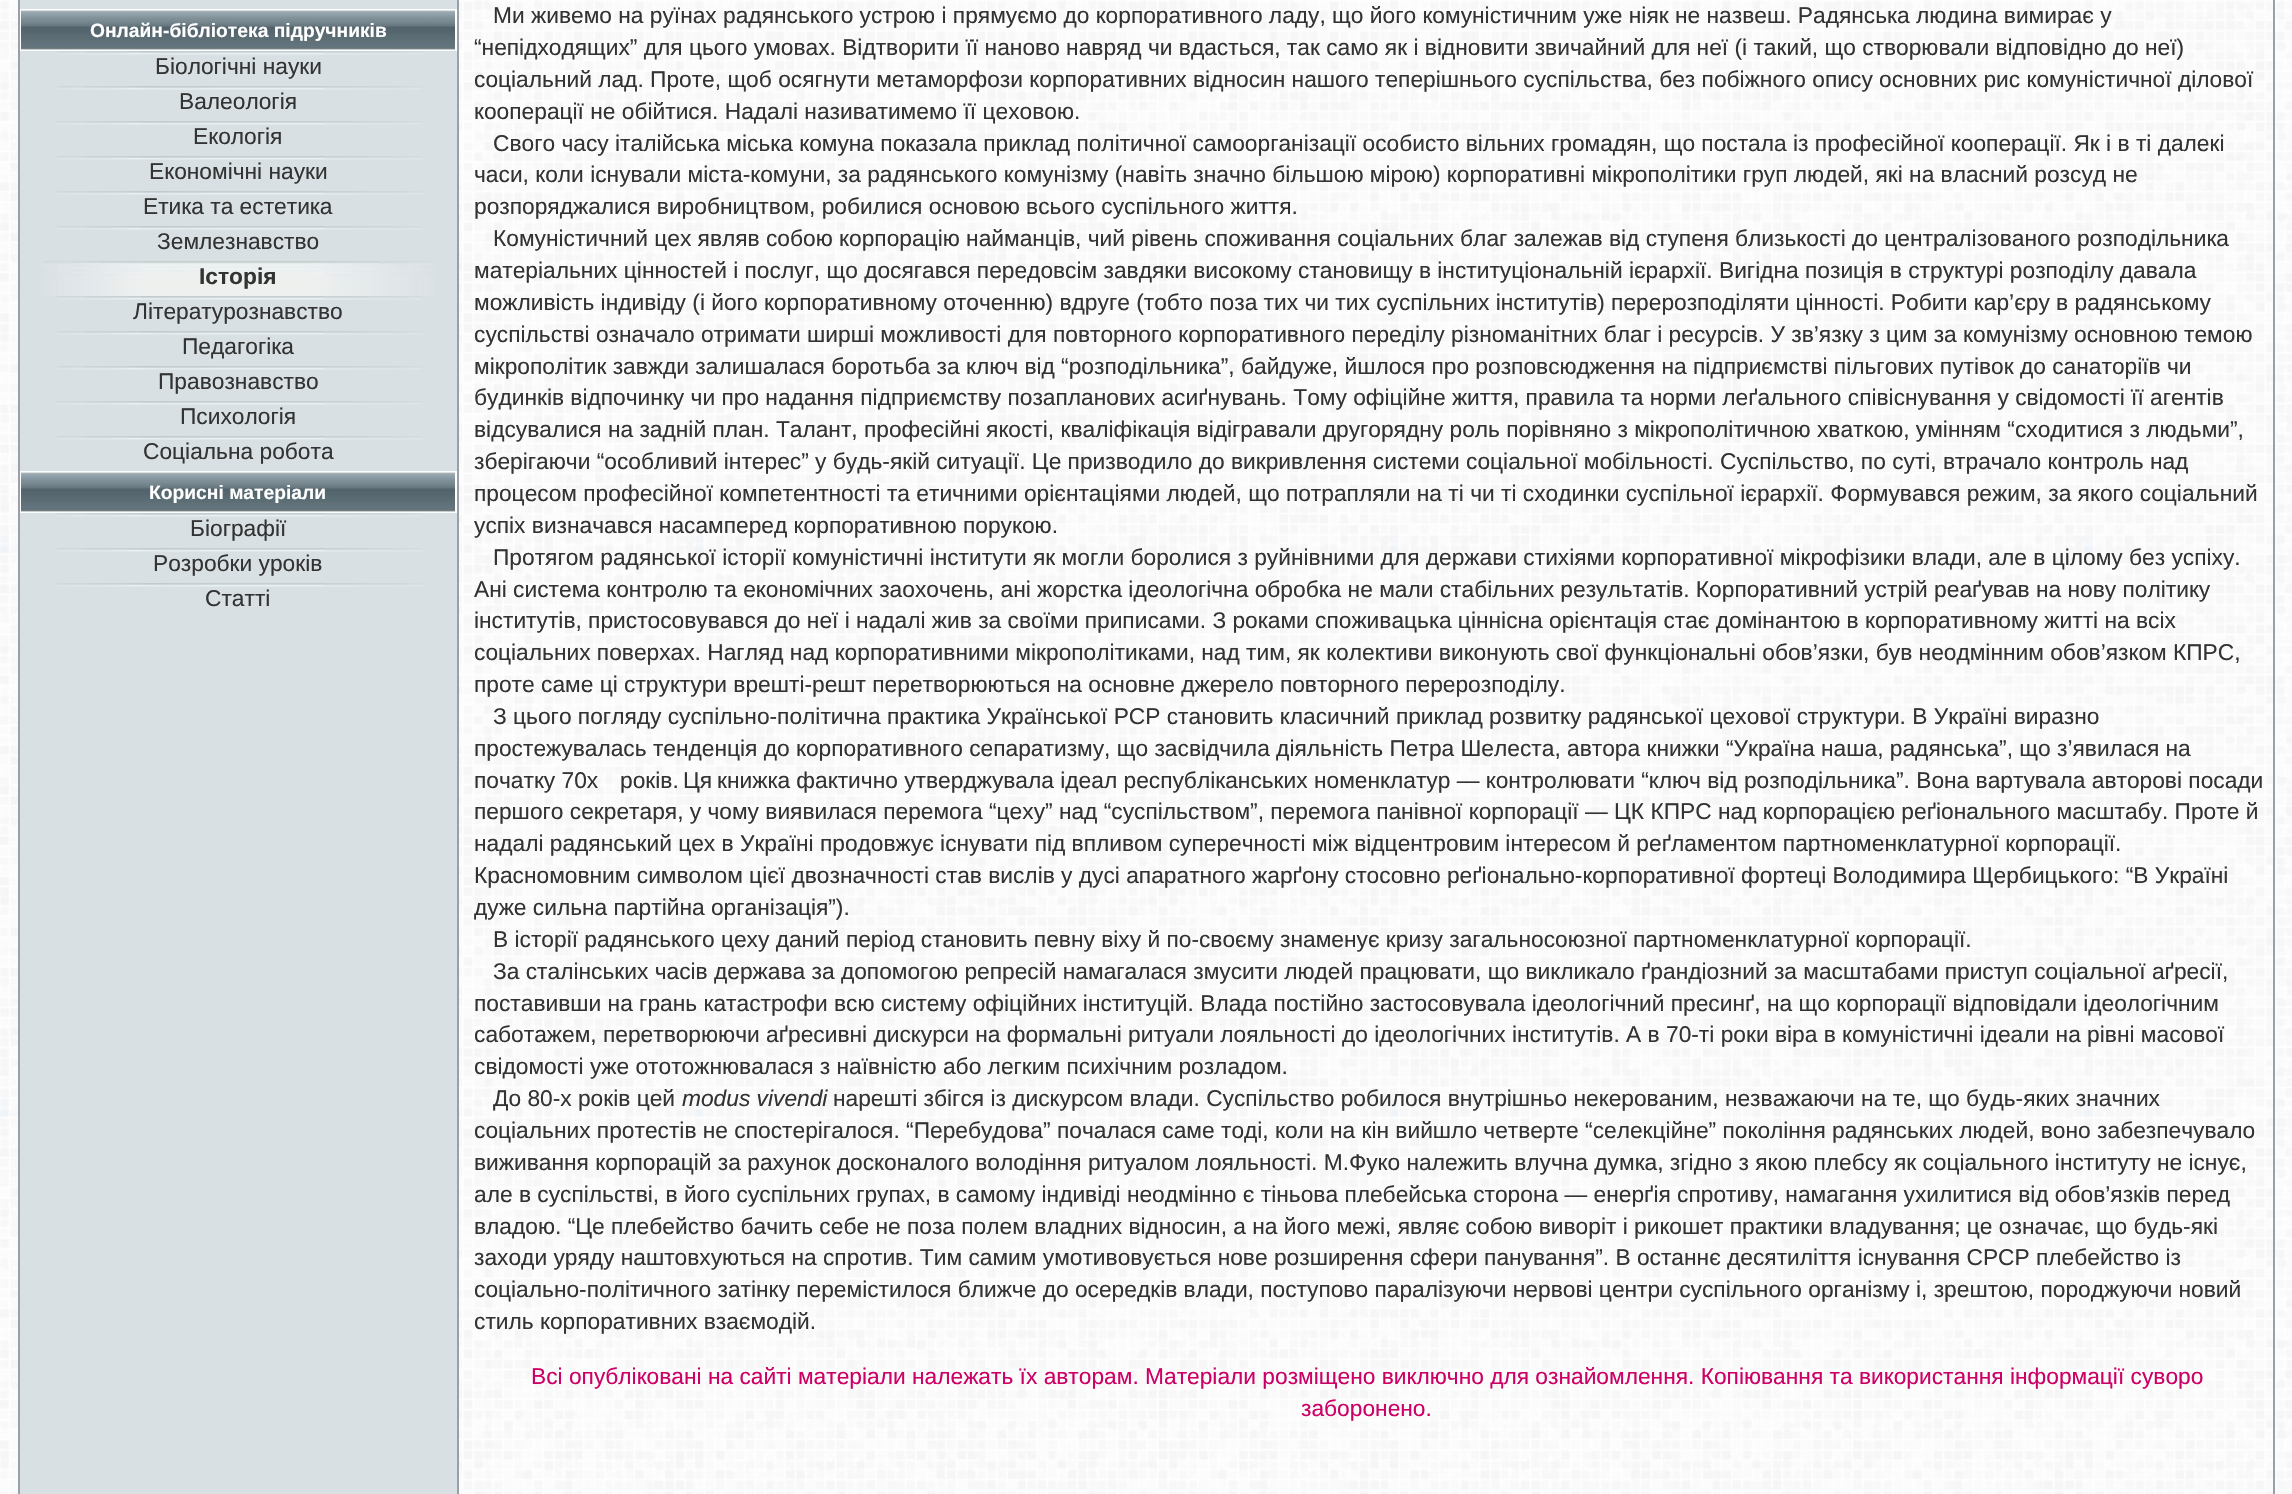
void draw(SkCanvas* c) {
SkPaint p;
p.setAntiAlias(true);
auto F=[&](const char* family, int weight, float size, bool italic = false){SkFontStyle style(weight, SkFontStyle::kNormal_Width,italic ? SkFontStyle::kItalic_Slant : SkFontStyle::kUpright_Slant);SkFont result(fontMgr->matchFamilyStyle(family, style), size);result.setSubpixel(true);return result;};
auto T=[&](const char* s, float x, float y, const SkFont& font){c->drawString(s, x, y, font, p);};
auto R=[&](float x, float y, float w, float h){c->drawRect(SkRect::MakeXYWH(x, y, w, h), p);};
auto I=[&](const char* path, float x, float y, float w, float h){auto image = SkImages::DeferredFromEncodedData(SkData::MakeFromFileName(path));c->drawImageRect(image, SkRect::MakeXYWH(x, y, w, h), SkSamplingOptions());};
c->clear(0xffffffff);
I("1.png",0,0,2292,1494);
p.setColor(0xffd8e0e3);
c->drawRect(SkRect::MakeXYWH(19,-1,439,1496),p);
p.setStroke(true);
p.setStrokeWidth(2);
p.setColor(0xff99a0aa);
c->drawRect(SkRect::MakeXYWH(19,-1,439,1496),p);
I("2.png",21,9,434,42);
p.setStroke(false);
p.setColor(0xffffffff);
R(455,9,2,42);
R(20,9,1,42);
I("3.png",57,51,365,4);
I("3.png",57,86,365,4);
I("3.png",57,121,365,4);
I("3.png",57,156,365,4);
I("3.png",57,191,365,4);
I("3.png",57,226,365,4);
I("4.png",41,261,394,35);
I("3.png",57,296,365,4);
I("3.png",57,331,365,4);
I("3.png",57,366,365,4);
I("3.png",57,401,365,4);
I("3.png",57,436,365,4);
I("5.png",21,471,434,42);
R(455,471,2,42);
R(20,471,1,42);
I("3.png",57,513,365,4);
I("3.png",57,548,365,4);
I("3.png",57,583,365,4);
p.setStroke(true);
p.setColor(0xff99a0aa);
c->drawRect(SkRect::MakeXYWH(19,-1,2255,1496),p);
auto f1 = F("Liberation Sans",700,19.25);
p.setStroke(false);
p.setColor(0xffffffff);
T("Онлайн-бібліотека підручників",90,37,f1);
auto f2 = F("Liberation Sans",400,22.75);
p.setColor(0xff333333);
T("Біологічні науки",155,74,f2);
T("Валеологія",179,109,f2);
T("Екологія",193,144,f2);
T("Економічні науки",149,179,f2);
T("Етика та естетика",143,214,f2);
T("Землезнавство",157,249,f2);
auto f3 = F("Liberation Sans",700,22.75);
T("Історія",199,284,f3);
T("Літературознавство",133,319,f2);
T("Педагогіка",182,354,f2);
T("Правознавство",158,389,f2);
T("Психологія",180,424,f2);
T("Соціальна робота",143,459,f2);
p.setColor(0xffffffff);
T("Корисні матеріали",149,499,f1);
p.setColor(0xff333333);
T("Біографії",190,536,f2);
T("Розробки уроків",153,571,f2);
T("Статті",205,606,f2);
T("Ми живемо на руїнах радянського устрою i прямуємо до корпоративного ладу, що його комунiстичним уже нiяк не назвеш. Радянська людина вимирає у",493,23,f2);
T("“непiдходящих” для цього умовах. Вiдтворити її наново навряд чи вдасться, так само як i вiдновити звичайний для неї (i такий, що створювали вiдповiдно до неї)",474,55,f2);
T("соцiальний лад. Проте, щоб осягнути метаморфози корпоративних вiдносин нашого теперiшнього суспiльства, без побiжного опису основних рис комунiстичної дiлової",474,87,f2);
T("кооперацiї не обiйтися. Надалi називатимемо її цеховою.",474,119,f2);
T("Свого часу iталiйська мiська комуна показала приклад полiтичної самоорганiзацiї особисто вiльних громадян, що постала iз професiйної кооперацiї. Як i в тi далекi",493,151,f2);
T("часи, коли iснували мiста-комуни, за радянського комунiзму (навiть значно бiльшою мiрою) корпоративнi мiкрополiтики груп людей, якi на власний розсуд не",474,182,f2);
T("розпоряджалися виробництвом, робилися основою всього суспiльного життя.",474,214,f2);
T("Комунiстичний цех являв собою корпорацiю найманцiв, чий рiвень споживання соцiальних благ залежав вiд ступеня близькостi до централiзованого розподiльника",493,246,f2);
T("матерiальних цiнностей i послуг, що досягався передовсiм завдяки високому становищу в iнституцiональнiй iєрархiї. Вигiдна позицiя в структурi розподiлу давала",474,278,f2);
T("можливiсть iндивiду (i його корпоративному оточенню) вдруге (тобто поза тих чи тих суспільних інститутів) перерозподiляти цiнностi. Робити кар’єру в радянському",474,310,f2);
T("суспiльствi означало отримати ширшi можливостi для повторного корпоративного передiлу рiзноманiтних благ i ресурсiв. У зв’язку з цим за комунiзму основною темою",474,342,f2);
T("мiкрополiтик завжди залишалася боротьба за ключ вiд “розподiльника”, байдуже, йшлося про розповсюдження на пiдприємствi пiльгових путiвок до санаторiїв чи",474,374,f2);
T("будинкiв вiдпочинку чи про надання пiдприємству позапланових асиґнувань. Тому офіційне життя, правила та норми леґального співіснування у свiдомостi її агентiв",474,405,f2);
T("вiдсувалися на заднiй план. Талант, професiйнi якостi, квалiфiкацiя вiдiгравали другорядну роль порiвняно з мiкрополiтичною хваткою, умiнням “сходитися з людьми”,",474,437,f2);
T("зберiгаючи “особливий iнтерес” у будь-якiй ситуацiї. Це призводило до викривлення системи соцiальної мобiльностi. Суспiльство, по сутi, втрачало контроль над",474,469,f2);
T("процесом професiйної компетентностi та етичними орiєнтацiями людей, що потрапляли на тi чи тi сходинки суспiльної iєрархiї. Формувався режим, за якого соцiальний",474,501,f2);
T("успiх визначався насамперед корпоративною порукою.",474,533,f2);
T("Протягом радянської iсторiї комунiстичнi iнститути як могли боролися з руйнiвними для держави стихiями корпоративної мiкрофiзики влади, але в цiлому без успiху.",493,565,f2);
T("Анi система контролю та економiчних заохочень, анi жорстка iдеологiчна обробка не мали стабiльних результатiв. Корпоративний устрiй реаґував на нову полiтику",474,597,f2);
T("iнститутiв, пристосовувався до неї i надалi жив за своїми приписами. З роками споживацька цiннiсна орiєнтацiя стає домiнантою в корпоративному життi на всiх",474,628,f2);
T("соцiальних поверхах. Нагляд над корпоративними мiкрополiтиками, над тим, як колективи виконують свої функцiональні обов’язки, був неодмінним обов’язком КПРС,",474,660,f2);
T("проте саме цi структури врешті-решт перетворюються на основне джерело повторного перерозподiлу.",474,692,f2);
T("З цього погляду суспільно-політична практика Української РСР становить класичний приклад розвитку радянської цехової структури. В Україні виразно",493,724,f2);
T("простежувалась тенденція до корпоративного сепаратизму, що засвідчила діяльність Петра Шелеста, автора книжки “Україна наша, радянська”, що з’явилася на",474,756,f2);
T("початку 70‑х",474,788,f2);
T("років.",620,788,f2);
T("Ця",683,788,f2);
T("книжка фактично утверджувала ідеал республіканських номенклатур — контролювати “ключ від розподільника”. Вона вартувала авторові посади",717,788,f2);
T("першого секретаря, у чому виявилася перемога “цеху” над “суспільством”, перемога панівної корпорації — ЦК КПРС над корпорацією реґіонального масштабу. Проте й",474,819,f2);
T("надалі радянський цех в Україні продовжує існувати під впливом суперечності між відцентровим інтересом й реґламентом партноменклатурної корпорації.",474,851,f2);
T("Красномовним символом цієї двозначності став вислів у дусі апаратного жарґону стосовно реґіонально-корпоративної фортеці Володимира Щербицького: “В Україні",474,883,f2);
T("дуже сильна партійна організація”).",474,915,f2);
T("В історії радянського цеху даний період становить певну віху й по-своєму знаменує кризу загальносоюзної партноменклатурної корпорації.",493,947,f2);
T("За сталiнських часiв держава за допомогою репресiй намагалася змусити людей працювати, що викликало ґрандiозний за масштабами приступ соцiальної аґресії,",493,979,f2);
T("поставивши на грань катастрофи всю систему офіційних інституцій. Влада постiйно застосовувала iдеологiчний пресинґ, на що корпорацiї вiдповiдали iдеологiчним",474,1011,f2);
T("саботажем, перетворюючи аґресивнi дискурси на формальнi ритуали лояльностi до iдеологiчних iнститутiв. А в 70-тi роки вiра в комунiстичнi iдеали на рiвнi масової",474,1042,f2);
T("свiдомостi уже ототожнювалася з наївністю або легким психiчним розладом.",474,1074,f2);
T("До 80-х рокiв цей",493,1106,f2);
auto f4 = F("Liberation Sans",400,22.75,true);
T("modus vivendi",682,1106,f4);
T("нарештi збiгся iз дискурсом влади. Суспiльство робилося внутрiшньо некерованим, незважаючи на те, що будь-яких значних",833,1106,f2);
T("соцiальних протестiв не спостерiгалося. “Перебудова” почалася саме тодi, коли на кiн вийшло четверте “селекцiйне” поколiння радянських людей, воно забезпечувало",474,1138,f2);
T("виживання корпорацiй за рахунок досконалого володiння ритуалом лояльностi. М.Фуко належить влучна думка, згiдно з якою плебсу як соцiального iнституту не iснує,",474,1170,f2);
T("але в суспiльствi, в його суспiльних групах, в самому iндивiдi неодмiнно є тiньова плебейська сторона — енерґiя спротиву, намагання ухилитися вiд обов’язкiв перед",474,1202,f2);
T("владою. “Це плебейство бачить себе не поза полем владних вiдносин, а на його межi, являє собою виворiт i рикошет практики владування; це означає, що будь-якi",474,1234,f2);
T("заходи уряду наштовхуються на спротив. Тим самим умотивовується нове розширення сфери панування”. В останнє десятилiття iснування СРСР плебейство iз",474,1265,f2);
T("соцiально-полiтичного затiнку перемiстилося ближче до осередків влади, поступово паралiзуючи нервовi центри суспiльного органiзму i, зрештою, породжуючи новий",474,1297,f2);
T("стиль корпоративних взаємодiй.",474,1329,f2);
p.setColor(0xffcc0066);
T("Всі опубліковані на сайті матеріали належать їх авторам. Матеріали розміщено виключно для ознайомлення. Копіювання та використання інформації суворо",531,1384,f2);
T("заборонено.",1301,1416,f2);
}
